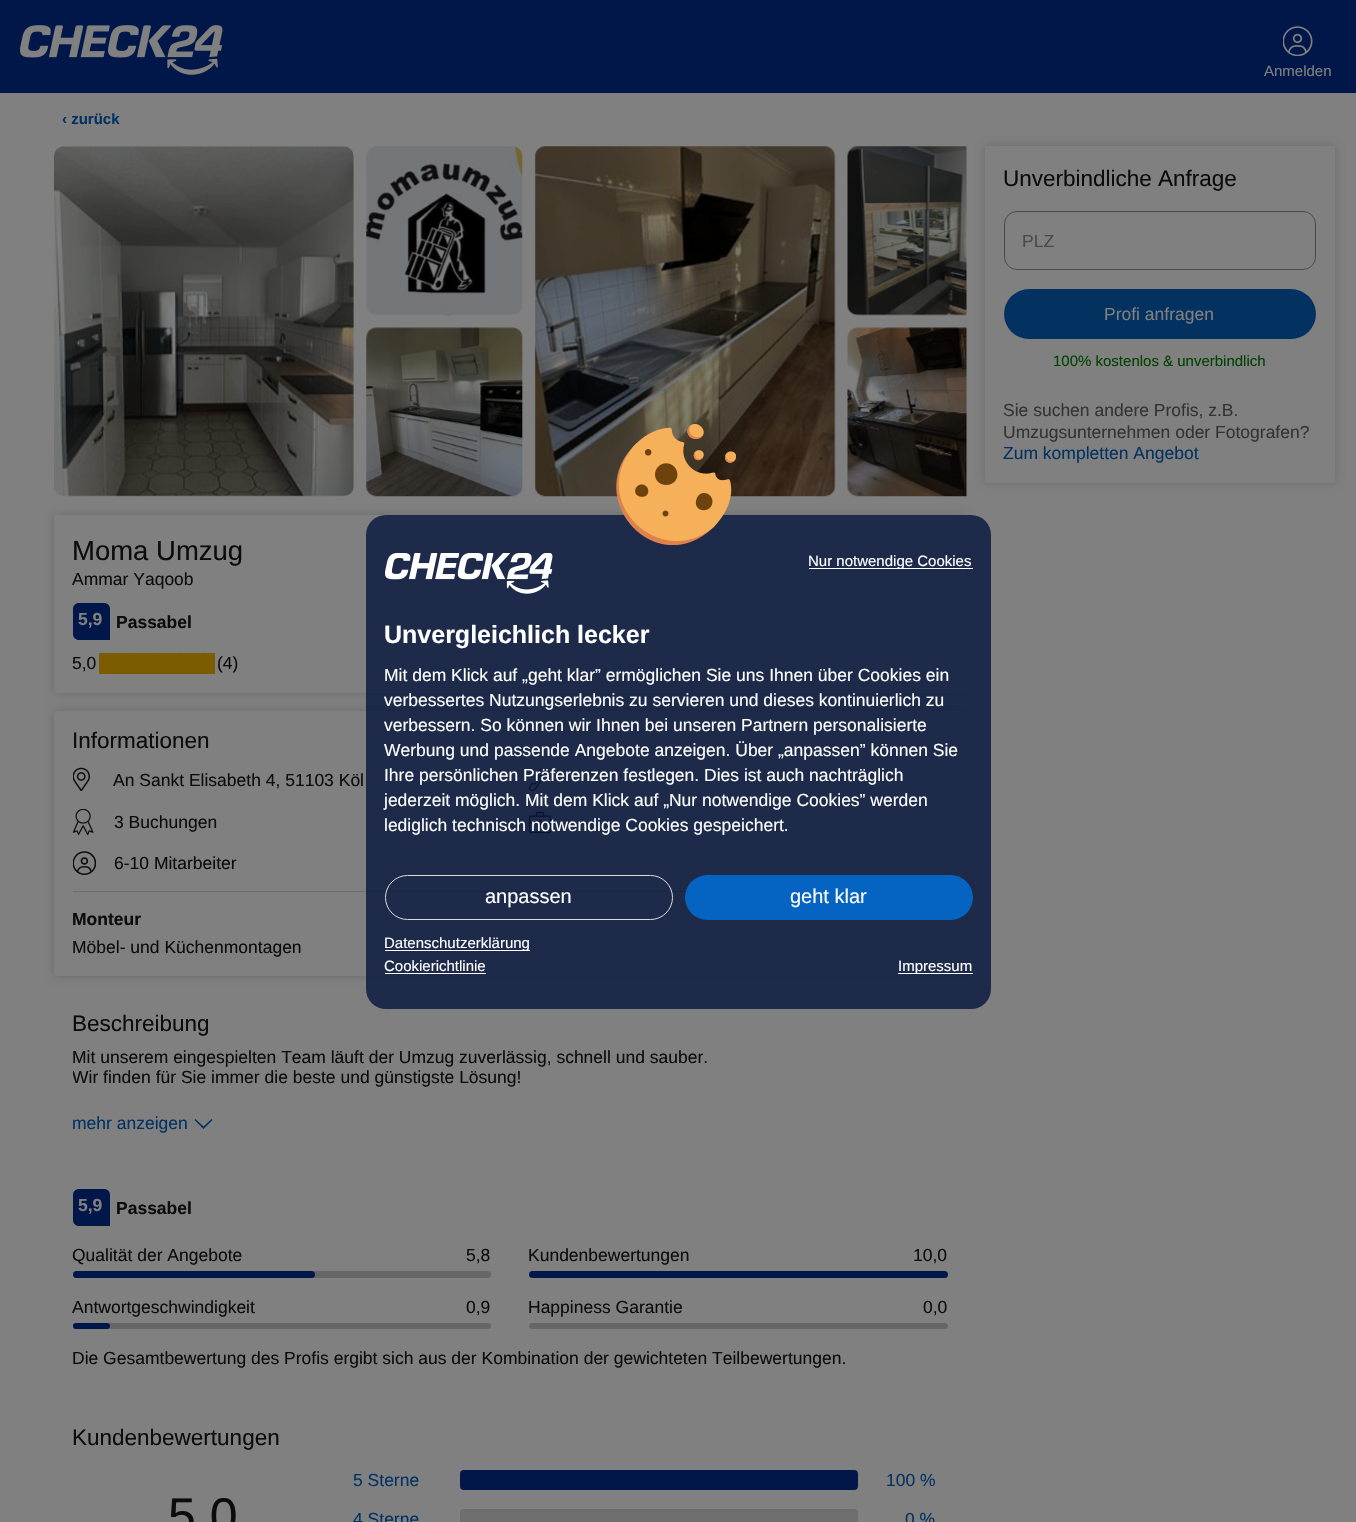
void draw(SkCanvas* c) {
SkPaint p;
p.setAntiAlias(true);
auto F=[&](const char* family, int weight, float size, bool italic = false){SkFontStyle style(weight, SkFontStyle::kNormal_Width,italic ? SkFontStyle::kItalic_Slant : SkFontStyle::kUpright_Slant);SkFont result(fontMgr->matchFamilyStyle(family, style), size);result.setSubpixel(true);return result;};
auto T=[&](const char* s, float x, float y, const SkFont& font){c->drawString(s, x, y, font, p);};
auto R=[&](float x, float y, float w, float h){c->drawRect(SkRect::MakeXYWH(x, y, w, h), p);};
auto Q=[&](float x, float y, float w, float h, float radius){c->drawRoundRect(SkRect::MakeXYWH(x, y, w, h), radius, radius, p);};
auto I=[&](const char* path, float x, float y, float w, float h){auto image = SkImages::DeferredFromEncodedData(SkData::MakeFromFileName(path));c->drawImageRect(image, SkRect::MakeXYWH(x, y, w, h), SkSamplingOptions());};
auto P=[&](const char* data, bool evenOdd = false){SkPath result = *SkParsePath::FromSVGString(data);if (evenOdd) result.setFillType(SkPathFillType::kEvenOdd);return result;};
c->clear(0xff01174a);
I("1.png",20,25,203,50);
I("2.png",1283,26,30,30);
auto f1 = F("Liberation Sans",400,15);
p.setColor(0xff808080);
T("Anmelden",1264,76,f1);
R(0,93,1356,1429);
auto f2 = F("Liberation Sans",700,15);
p.setColor(0xff033261);
T("‹ zurück",62,124,f2);
p.setColor(0x29000000);
p.setMaskFilter(SkMaskFilter::MakeBlur(kNormal_SkBlurStyle, 5));
c->drawRoundRect(SkRect::MakeXYWH(985,146,350,337),4,4,p);
p.setMaskFilter(nullptr);
p.setColor(0xff808080);
c->drawPath(P("M985 146h350v333c0 2-2 4-4 4h-342c-2 0-4-2-4-4z"),p);
auto f3 = F("Liberation Sans",400,22.5);
p.setColor(0xff0c0c0c);
T("Unverbindliche Anfrage",1003,186,f3);
p.setStroke(true);
p.setStrokeWidth(1);
p.setColor(0xff4a4a4a);
c->drawRoundRect(SkRect::MakeXYWH(1004.5,211.5,311,58),12.5,12.5,p);
auto f4 = F("Liberation Sans",400,17.5);
p.setStroke(false);
T("PLZ",1022,247,f4);
p.setColor(0xff033261);
Q(1004,289,312,50,25);
p.setColor(0xff808080);
T("Profi anfragen",1104,320,f4);
p.setColor(0xff004200);
T("100% kostenlos & unverbindlich",1053,366,f1);
p.setColor(0xff333333);
T("Sie suchen andere Profis, z.B.",1003,416,f4);
T("Umzugsunternehmen oder Fotografen?",1003,438,f4);
p.setColor(0xff033261);
T("Zum kompletten Angebot",1003,459,f4);
I("3.png",53,146,301,351);
I("4.png",366,146,157,170);
I("5.png",534,146,302,351);
I("6.png",847,146,120,170);
I("7.png",366,327,157,170);
I("8.png",847,327,120,170);
p.setColor(0x29000000);
p.setMaskFilter(SkMaskFilter::MakeBlur(kNormal_SkBlurStyle, 5));
c->drawRoundRect(SkRect::MakeXYWH(54,515,912,178),4,4,p);
p.setMaskFilter(nullptr);
p.setColor(0xff808080);
c->drawPath(P("M54 515h912v174c0 2-2 4-4 4h-904c-2 0-4-2-4-4z"),p);
auto f5 = F("Liberation Sans",400,27.5);
p.setColor(0xff0c0c0c);
T("Moma Umzug",72,560,f5);
T("Ammar Yaqoob",72,585,f4);
p.setColor(0xff01174a);
c->drawPath(P("M79 603h25c3.5 0 6 2.5 6 6v31h-31c-3.5 0-6-2.5-6-6v-25c0-3.5 2.5-6 6-6z"),p);
auto f6 = F("Liberation Sans",700,17.5);
p.setColor(0xff808080);
T("5,9",78,625,f6);
p.setColor(0xff0c0c0c);
T("Passabel",116,628,f6);
T("5,0",72,669,f4);
I("9.png",98,652,107,10);
p.setColor(0xff7b5c00);
R(99,653,116,21);
p.setColor(0xff0c0c0c);
T("(4)",217,669,f4);
p.setColor(0x29000000);
p.setMaskFilter(SkMaskFilter::MakeBlur(kNormal_SkBlurStyle, 5));
c->drawRoundRect(SkRect::MakeXYWH(54,711,912,265),4,4,p);
p.setMaskFilter(nullptr);
p.setColor(0xff808080);
Q(54,711,912,265,4);
p.setColor(0xff0c0c0c);
T("Informationen",72,748,f3);
I("10.png",73,767,17,24);
T("An Sankt Elisabeth 4, 51103 Köl",113,786,f4);
I("11.png",529,769,16,22);
I("12.png",73,809,21,26);
T("3 Buchungen",114,828,f4);
I("13.png",529,811,22,23);
I("14.png",73,851,23,24);
T("6-10 Mitarbeiter",114,869,f4);
p.setColor(0xff6e6e6e);
R(73,891,613,1);
p.setColor(0xff0c0c0c);
T("Monteur",72,925,f6);
T("Möbel- und Küchenmontagen",72,953,f4);
T("Beschreibung",72,1031,f3);
T("Mit unserem eingespielten Team läuft der Umzug zuverlässig, schnell und sauber.",72,1063,f4);
c->save();
c->clipRect(SkRect::MakeXYWH(73,1046,837,60));
T("Wir finden für Sie immer die beste und günstigste Lösung!",72,1083,f4);
c->restore();
p.setColor(0xff033261);
T("mehr anzeigen",72,1129,f4);
c->drawPath(P("M203.5 1129l9-9l-1-1l-8 7.5l-8-7.5l-1 1z"),p);
p.setColor(0xff01174a);
c->drawPath(P("M79 1189h25c3.5 0 6 2.5 6 6v31h-31c-3.5 0-6-2.5-6-6v-25c0-3.5 2.5-6 6-6z"),p);
p.setColor(0xff808080);
T("5,9",78,1211,f6);
p.setColor(0xff0c0c0c);
T("Passabel",116,1214,f6);
T("Qualität der Angebote",72,1261,f4);
T("5,8",466,1261,f4);
p.setColor(0xff666666);
Q(73,1271,418,7,3.5);
p.setColor(0xff01174a);
Q(73,1271,242,7,3.5);
p.setColor(0xff0c0c0c);
T("Kundenbewertungen",528,1261,f4);
T("10,0",913,1261,f4);
p.setColor(0xff01174a);
Q(529,1271,419,7,3.5);
p.setColor(0xff0c0c0c);
T("Antwortgeschwindigkeit",72,1313,f4);
T("0,9",466,1313,f4);
p.setColor(0xff666666);
Q(73,1323,418,6,3);
p.setColor(0xff01174a);
Q(73,1323,37,6,3);
p.setColor(0xff0c0c0c);
T("Happiness Garantie",528,1313,f4);
T("0,0",923,1313,f4);
p.setColor(0xff666666);
Q(529,1323,419,6,3);
p.setColor(0xff0c0c0c);
T("Die Gesamtbewertung des Profis ergibt sich aus der Kombination der gewichteten Teilbewertungen.",72,1364,f4);
T("Kundenbewertungen",72,1445,f3);
auto f7 = F("Liberation Sans",400,50);
T("5,0",168,1533,f7);
p.setColor(0xff033261);
T("5 Sterne",353,1486,f4);
p.setColor(0xff01174a);
Q(460,1470,398,20,4);
p.setColor(0xff033261);
T("100 %",886,1486,f4);
T("4 Sterne",353,1525,f4);
p.setColor(0xff6e6e6e);
Q(460,1509,398,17,4);
p.setColor(0xff033261);
T("0 %",905,1525,f4);
p.setColor(0xcc04143c);
Q(366,515,625,494,20);
I("15.png",616,424,120,121);
I("16.png",385,553,168,41);
p.setColor(0xffffffff);
R(809,568,164,1);
T("Nur notwendige Cookies",808,566,f1);
auto f8 = F("Liberation Sans",700,25);
T("Unvergleichlich lecker",384,643,f8);
T("Mit dem Klick auf „geht klar” ermöglichen Sie uns Ihnen über Cookies ein",384,681,f4);
T("verbessertes Nutzungserlebnis zu servieren und dieses kontinuierlich zu",384,706,f4);
T("verbessern. So können wir Ihnen bei unseren Partnern personalisierte",384,731,f4);
T("Werbung und passende Angebote anzeigen. Über „anpassen” können Sie",384,756,f4);
T("Ihre persönlichen Präferenzen festlegen. Dies ist auch nachträglich",384,781,f4);
T("jederzeit möglich. Mit dem Klick auf „Nur notwendige Cookies” werden",384,806,f4);
T("lediglich technisch notwendige Cookies gespeichert.",384,831,f4);
p.setStroke(true);
p.setColor(0xffdcdcdc);
c->drawRoundRect(SkRect::MakeXYWH(385.5,875.5,287,44),22,22,p);
auto f9 = F("Liberation Sans",400,20);
p.setStroke(false);
p.setColor(0xffffffff);
T("anpassen",485,903,f9);
p.setColor(0xff0563c1);
Q(685,875,288,45,22.5);
p.setColor(0xffffffff);
T("geht klar",790,903,f9);
R(385,950,145,1);
T("Datenschutzerklärung",384,948,f1);
T("Cookierichtlinie",384,971,f1);
R(385,973,101,1);
R(898,973,75,1);
T("Impressum",898,971,f1);
}
